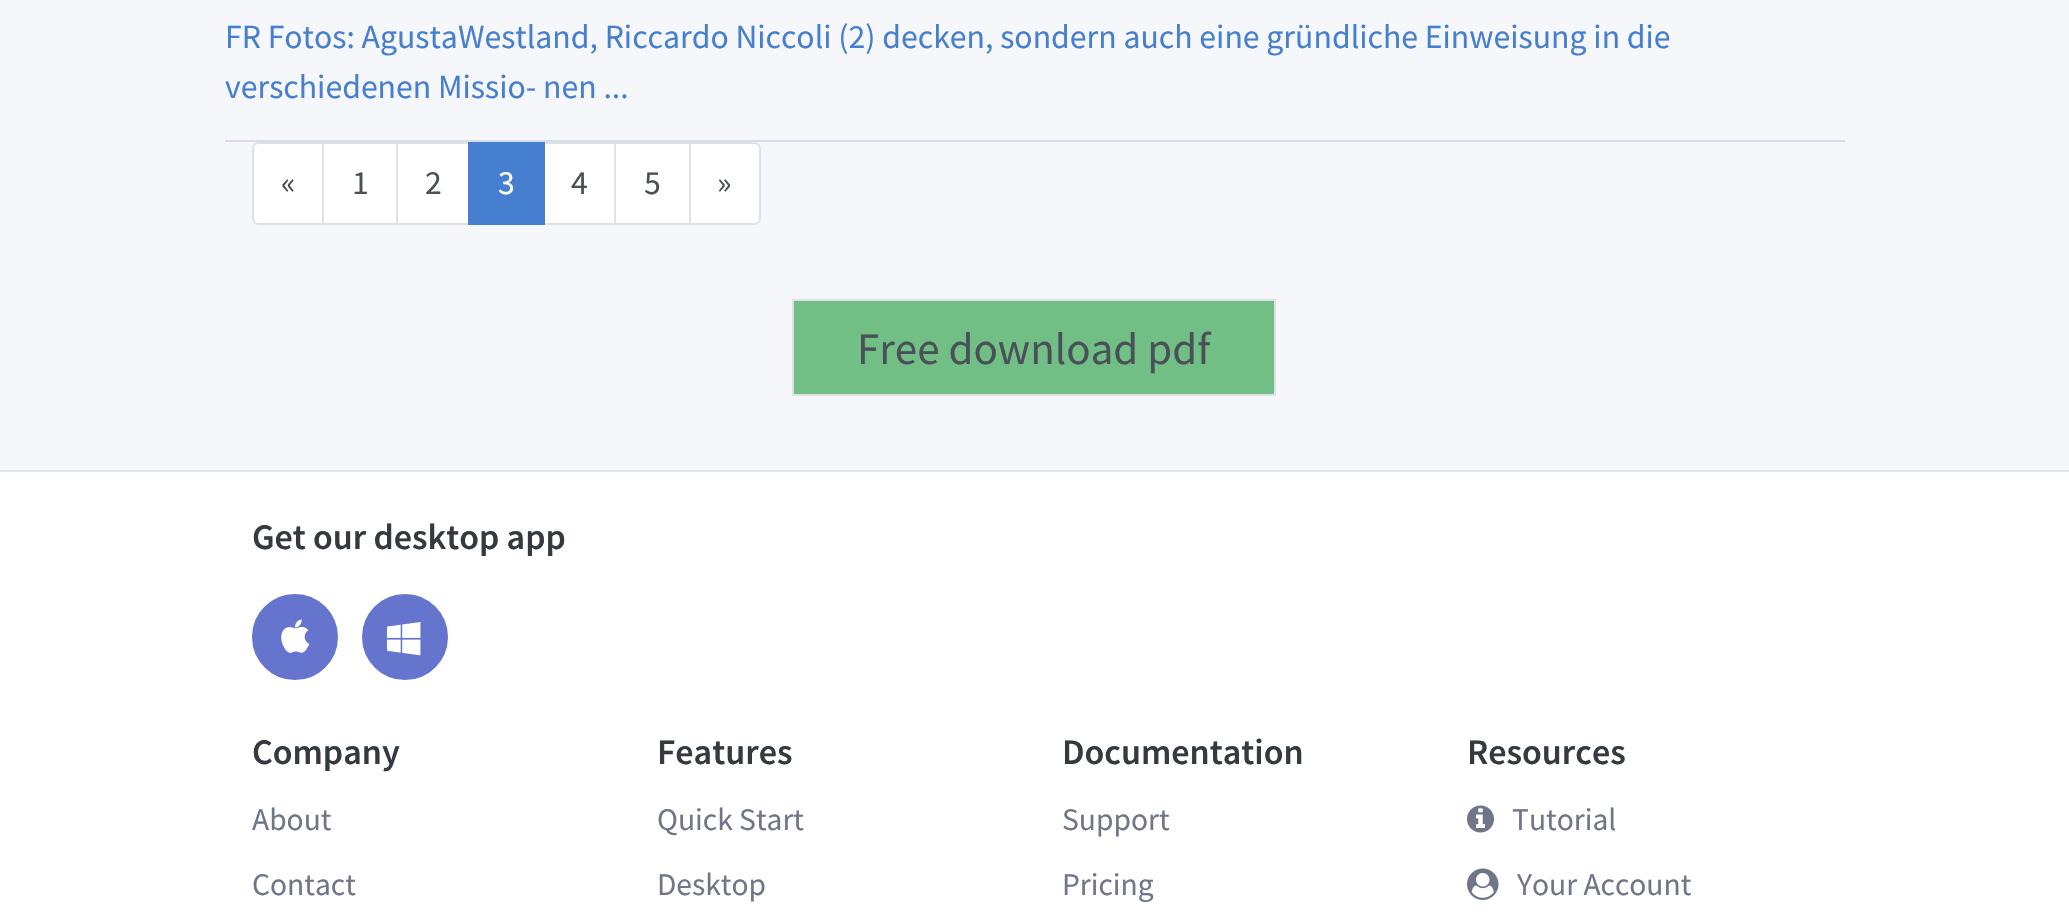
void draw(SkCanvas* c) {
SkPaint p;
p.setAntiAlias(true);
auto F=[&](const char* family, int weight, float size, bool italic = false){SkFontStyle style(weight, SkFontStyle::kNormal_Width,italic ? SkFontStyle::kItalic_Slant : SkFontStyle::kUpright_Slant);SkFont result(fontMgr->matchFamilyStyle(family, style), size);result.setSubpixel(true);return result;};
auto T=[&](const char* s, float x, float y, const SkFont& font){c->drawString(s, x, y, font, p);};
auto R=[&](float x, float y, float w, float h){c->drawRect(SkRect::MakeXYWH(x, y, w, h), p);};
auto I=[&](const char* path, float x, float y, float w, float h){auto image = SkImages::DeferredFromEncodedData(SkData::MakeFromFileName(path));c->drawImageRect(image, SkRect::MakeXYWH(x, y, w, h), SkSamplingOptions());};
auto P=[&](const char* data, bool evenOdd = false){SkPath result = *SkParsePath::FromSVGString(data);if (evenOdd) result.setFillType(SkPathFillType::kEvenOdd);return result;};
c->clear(0xfff5f7fb);
p.setColor(0xffd8dee9);
R(225,140,1620,2);
auto f1 = F("Source Sans Pro",400,33.75);
p.setColor(0xff467fcf);
T("FR Fotos: AgustaWestland, Riccardo Niccoli (2) decken, sondern auch eine gründliche Einweisung in die",225,48,f1);
T("verschiedenen Missio- nen ...",225,98,f1);
p.setColor(0xffffffff);
c->drawPath(P("M259 143h64v81h-64c-3.5 0-6-2.5-6-6v-69c0-3.5 2.5-6 6-6z"),p);
p.setStroke(true);
p.setStrokeWidth(2);
p.setColor(0xffdee2e6);
c->drawPath(P("M259 143h64v81h-64c-3.5 0-6-2.5-6-6v-69c0-3.5 2.5-6 6-6z"),p);
p.setStroke(false);
p.setColor(0xff495057);
T("«",281,194,f1);
p.setColor(0xffffffff);
c->drawRect(SkRect::MakeXYWH(323,143,74,81),p);
p.setStroke(true);
p.setColor(0xffdee2e6);
c->drawRect(SkRect::MakeXYWH(323,143,74,81),p);
p.setStroke(false);
p.setColor(0xff495057);
T("1",352,194,f1);
p.setColor(0xffffffff);
c->drawRect(SkRect::MakeXYWH(397,143,72,81),p);
p.setStroke(true);
p.setColor(0xffdee2e6);
c->drawRect(SkRect::MakeXYWH(397,143,72,81),p);
p.setStroke(false);
p.setColor(0xff495057);
T("2",425,194,f1);
p.setColor(0xffffffff);
R(545,144,69,79);
p.setStroke(true);
p.setColor(0xffdee2e6);
c->drawRect(SkRect::MakeXYWH(543,143,73,81),p);
p.setStroke(false);
p.setColor(0xff467fcf);
R(468,142,77,83);
p.setColor(0xffffffff);
T("3",498,194,f1);
p.setColor(0xff495057);
T("4",571,194,f1);
p.setColor(0xffffffff);
c->drawRect(SkRect::MakeXYWH(615,143,75,81),p);
p.setStroke(true);
p.setColor(0xffdee2e6);
c->drawRect(SkRect::MakeXYWH(615,143,75,81),p);
p.setStroke(false);
p.setColor(0xff495057);
T("5",644,194,f1);
p.setColor(0xffffffff);
c->drawPath(P("M690 143h64c3.5 0 6 2.5 6 6v69c0 3.5-2.5 6-6 6h-64z"),p);
p.setStroke(true);
p.setColor(0xffdee2e6);
c->drawPath(P("M690 143h64c3.5 0 6 2.5 6 6v69c0 3.5-2.5 6-6 6h-64z"),p);
p.setStroke(false);
p.setColor(0xff495057);
T("»",717,194,f1);
p.setColor(0xff72bf86);
c->drawRect(SkRect::MakeXYWH(793,300,482,95),p);
p.setStroke(true);
p.setColor(0xffdee2e6);
c->drawRect(SkRect::MakeXYWH(793,300,482,95),p);
auto f2 = F("Source Sans Pro",400,45);
p.setStroke(false);
p.setColor(0xff495057);
T("Free download pdf",857,364,f2);
p.setColor(0xffffffff);
R(0,472,2069,448);
p.setColor(0xffe0e5ec);
R(0,470,2069,2);
auto f3 = F("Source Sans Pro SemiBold",600,36);
p.setColor(0xff343a40);
T("Get our desktop app",252,549,f3);
p.setColor(0xff6574cd);
c->drawCircle(295,637,42,p);
p.setStroke(true);
c->drawCircle(295,637,42,p);
I("1.png",281,619,29,34);
p.setStroke(false);
c->drawCircle(405,637,42,p);
p.setStroke(true);
c->drawCircle(405,637,42,p);
I("2.png",387,622,34,34);
p.setStroke(false);
p.setColor(0xff343a40);
T("Company",252,764,f3);
auto f4 = F("Source Sans Pro",400,31.5);
p.setColor(0xff6e7687);
T("About",252,830,f4);
T("Contact",252,895,f4);
p.setColor(0xff343a40);
T("Features",657,764,f3);
p.setColor(0xff6e7687);
T("Quick Start",657,830,f4);
T("Desktop",657,895,f4);
p.setColor(0xff343a40);
T("Documentation",1062,764,f3);
p.setColor(0xff6e7687);
T("Support",1062,830,f4);
T("Pricing",1062,895,f4);
p.setColor(0xff343a40);
T("Resources",1467,764,f3);
I("3.png",1467,805,27,28);
p.setColor(0xff6e7687);
T("Tutorial",1512,830,f4);
I("4.png",1467,868,32,32);
T("Your Account",1517,895,f4);
}
